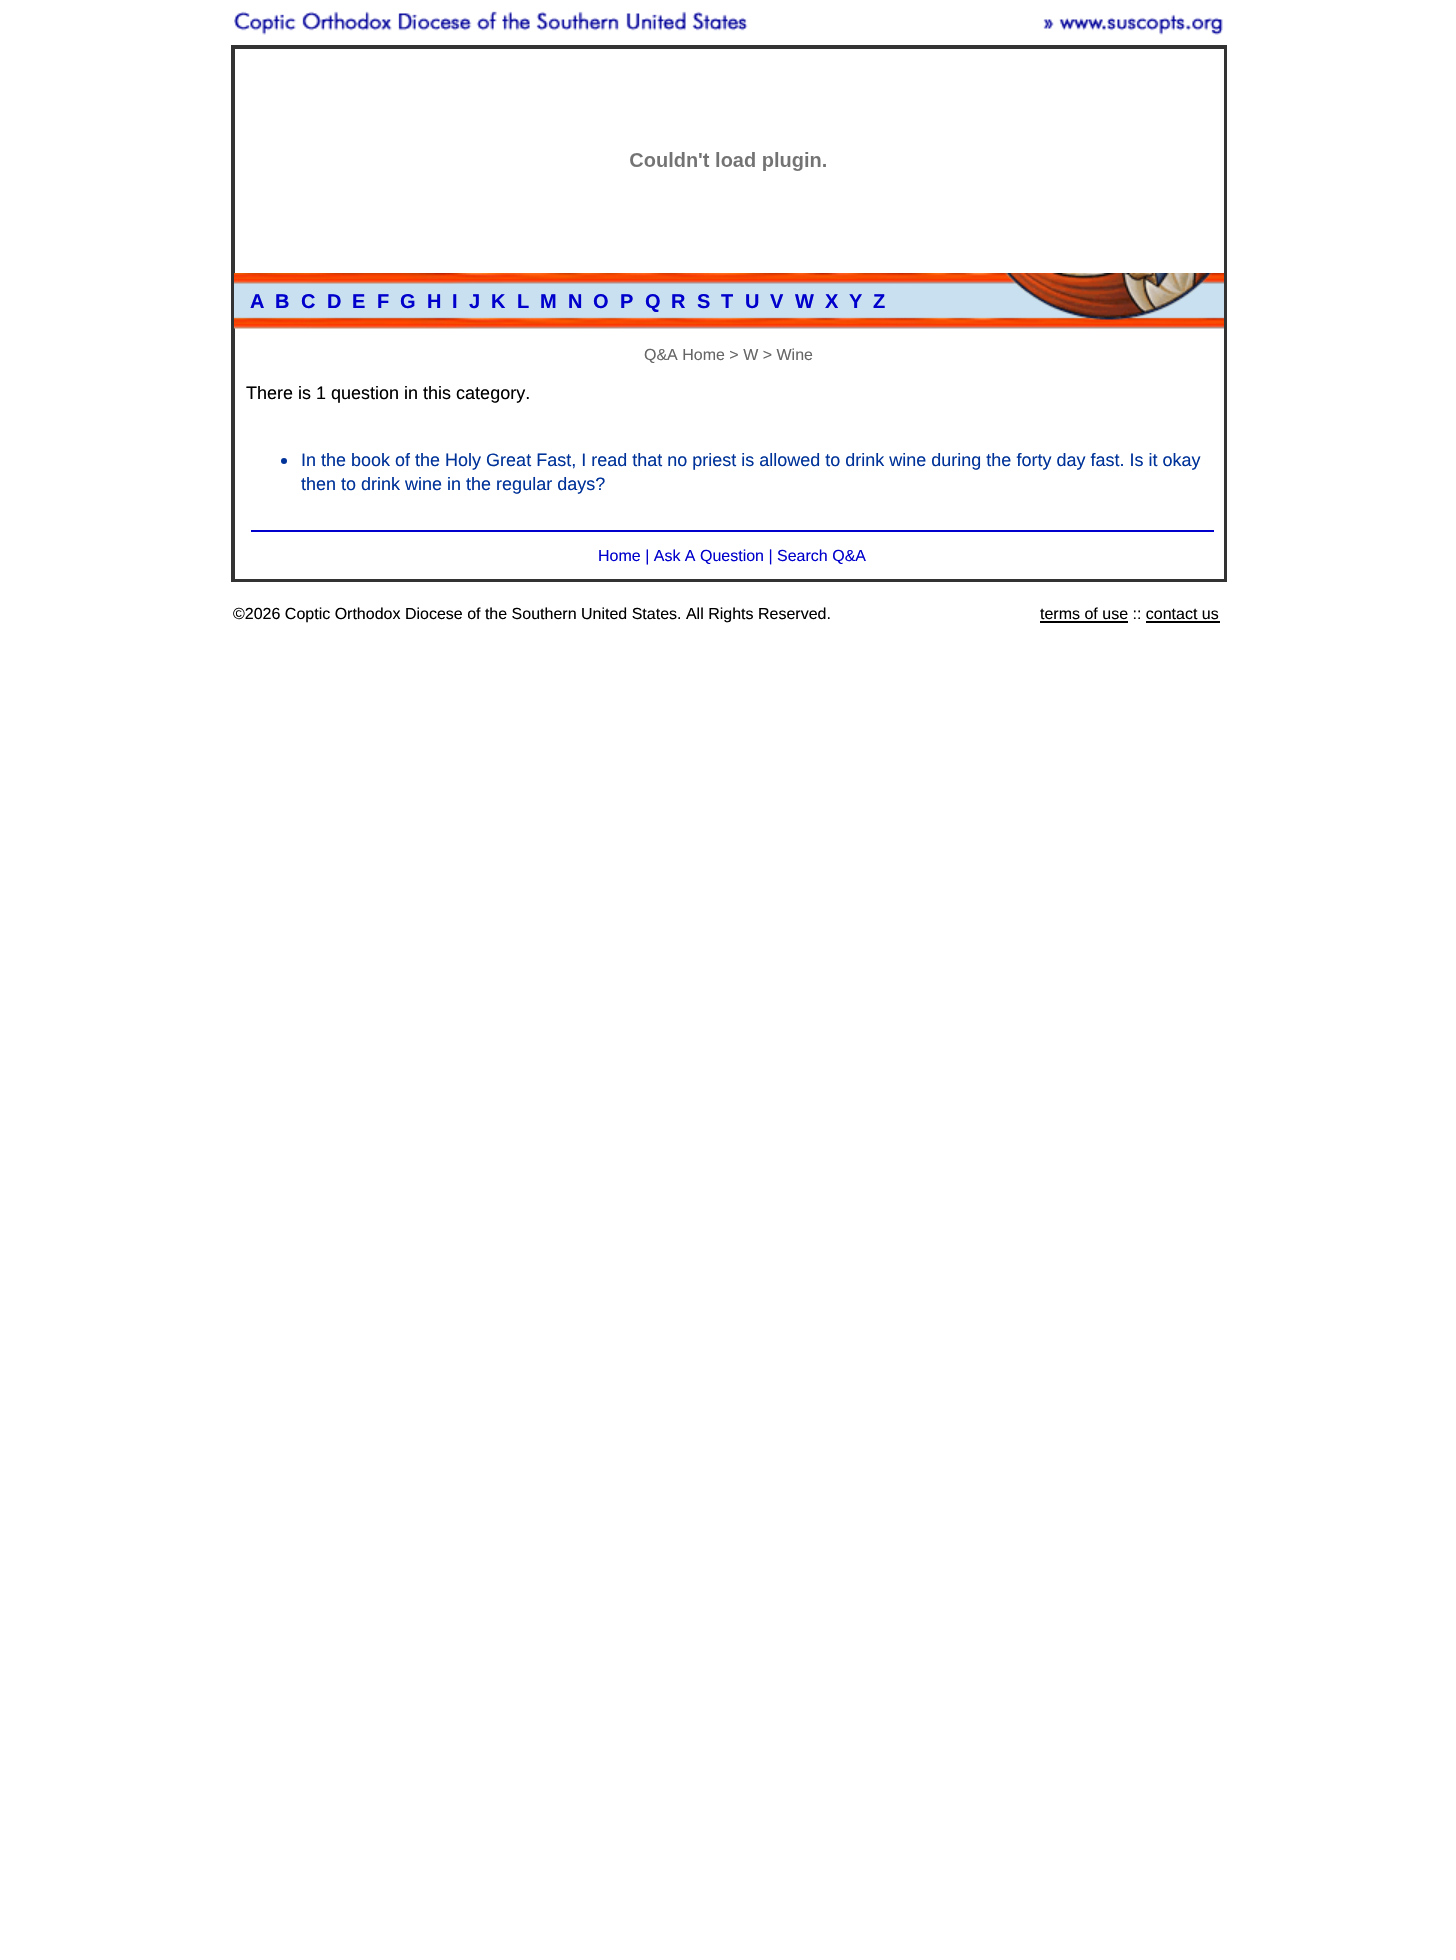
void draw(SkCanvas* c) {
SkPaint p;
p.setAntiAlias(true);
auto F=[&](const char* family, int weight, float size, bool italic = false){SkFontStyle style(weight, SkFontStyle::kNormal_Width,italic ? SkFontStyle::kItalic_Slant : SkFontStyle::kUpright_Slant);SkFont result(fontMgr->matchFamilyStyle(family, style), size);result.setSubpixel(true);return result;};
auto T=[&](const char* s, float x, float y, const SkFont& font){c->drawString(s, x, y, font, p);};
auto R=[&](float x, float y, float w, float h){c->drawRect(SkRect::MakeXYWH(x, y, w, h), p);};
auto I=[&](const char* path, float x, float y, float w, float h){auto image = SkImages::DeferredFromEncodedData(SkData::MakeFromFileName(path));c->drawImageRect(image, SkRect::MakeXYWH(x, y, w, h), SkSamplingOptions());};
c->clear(0xffffffff);
I("1.png",234,11,989,24);
p.setStroke(true);
p.setStrokeWidth(2);
p.setColor(0xff333333);
c->drawRect(SkRect::MakeXYWH(232,46,994,535),p);
c->drawRect(SkRect::MakeXYWH(234,48,991,532),p);
I("2.png",630,152,196,19);
I("3.png",234,273,765,56);
auto f1 = F("Liberation Sans",700,20);
p.setStroke(false);
p.setColor(0xff0000cc);
T("A",250,308,f1);
T("B",275,308,f1);
T("C",301,308,f1);
T("D",327,308,f1);
T("E",352,308,f1);
T("F",377,308,f1);
T("G",400,308,f1);
T("H",427,308,f1);
T("I",452,308,f1);
T("J",469,308,f1);
T("K",491,308,f1);
T("L",517,308,f1);
T("M",540,308,f1);
T("N",568,308,f1);
T("O",593,308,f1);
T("P",620,308,f1);
T("Q",645,308,f1);
T("R",671,308,f1);
T("S",697,308,f1);
T("T",721,308,f1);
T("U",745,308,f1);
T("V",770,308,f1);
T("W",795,308,f1);
T("X",825,308,f1);
T("Y",849,308,f1);
T("Z",873,308,f1);
I("4.png",999,273,225,56);
auto f2 = F("Liberation Sans",400,16);
p.setColor(0xff666666);
T("Q&A Home > W > Wine",644,360,f2);
auto f3 = F("Liberation Sans",400,18);
p.setColor(0xff000000);
T("There is 1 question in this category.",246,399,f3);
p.setColor(0xff003399);
c->drawCircle(284,461,3,p);
T("In the book of the Holy Great Fast, I read that no priest is allowed to drink wine during the forty day fast. Is it okay",301,466,f3);
T("then to drink wine in the regular days?",301,490,f3);
p.setColor(0xff0000cc);
R(251,530,963,2);
T("Home | Ask A Question | Search Q&A",598,561,f2);
p.setColor(0xff000000);
T("©2026 Coptic Orthodox Diocese of the Southern United States. All Rights Reserved.",233,619,f2);
T("terms of use :: contact us",1040,619,f2);
R(1040,621,88,2);
R(1146,621,74,2);
}
